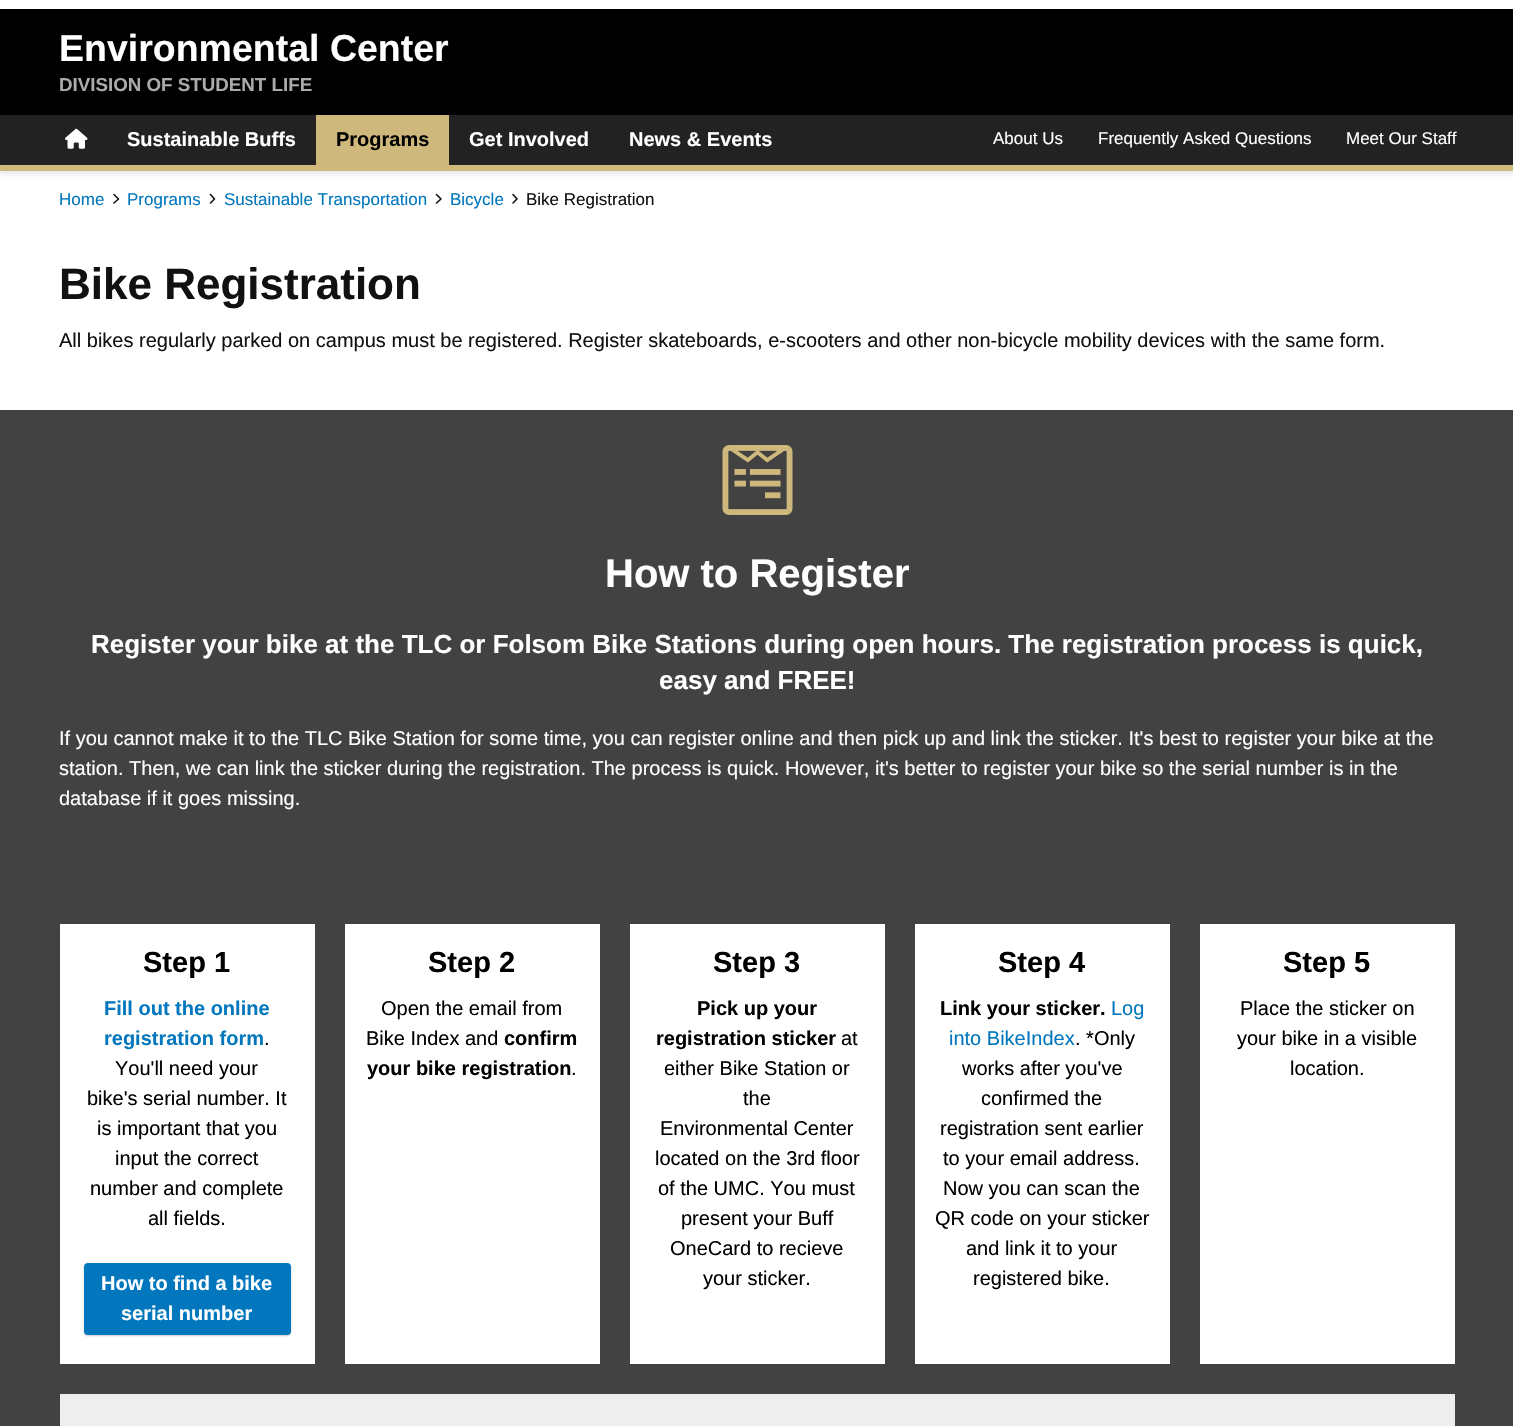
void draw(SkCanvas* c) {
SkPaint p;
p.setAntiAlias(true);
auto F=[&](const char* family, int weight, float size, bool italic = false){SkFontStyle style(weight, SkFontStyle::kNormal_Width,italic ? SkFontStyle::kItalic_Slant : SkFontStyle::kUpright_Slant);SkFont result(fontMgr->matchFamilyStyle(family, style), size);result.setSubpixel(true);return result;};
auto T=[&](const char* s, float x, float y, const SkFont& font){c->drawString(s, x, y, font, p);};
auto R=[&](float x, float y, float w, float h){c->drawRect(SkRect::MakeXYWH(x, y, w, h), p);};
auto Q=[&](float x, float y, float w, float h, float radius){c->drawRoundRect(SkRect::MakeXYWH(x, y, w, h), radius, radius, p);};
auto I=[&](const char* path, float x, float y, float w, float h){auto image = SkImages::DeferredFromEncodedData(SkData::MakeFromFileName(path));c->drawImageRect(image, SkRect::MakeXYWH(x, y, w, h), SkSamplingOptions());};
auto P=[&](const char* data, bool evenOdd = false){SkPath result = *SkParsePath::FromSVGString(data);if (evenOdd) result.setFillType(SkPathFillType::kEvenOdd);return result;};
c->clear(0xffffffff);
p.setColor(0x1a000000);
p.setMaskFilter(SkMaskFilter::MakeBlur(kNormal_SkBlurStyle, 3));
c->drawRect(SkRect::MakeXYWH(0,118,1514,56),p);
p.setMaskFilter(nullptr);
p.setColor(0xff000000);
R(0,9,1513,106);
auto f1 = F("Liberation Sans",700,37.5);
p.setColor(0xffffffff);
T("Environmental Center",59,61,f1);
auto f2 = F("Liberation Sans",700,18.75);
p.setColor(0xffaaaaaa);
T("DIVISION OF STUDENT LIFE",59,91,f2);
p.setColor(0xff222222);
R(0,115,1513,50);
p.setColor(0xffcfb87c);
R(0,165,1513,6);
I("1.png",65,128,23,21);
auto f3 = F("Liberation Sans",700,20);
p.setColor(0xffffffff);
T("Sustainable Buffs",127,146,f3);
p.setColor(0xffcfb87c);
R(316,115,133,50);
p.setColor(0xff000000);
T("Programs",336,146,f3);
p.setColor(0xffffffff);
T("Get Involved",469,146,f3);
T("News & Events",629,146,f3);
auto f4 = F("Liberation Sans",400,17);
T("About Us",993,144,f4);
T("Frequently Asked Questions",1098,144,f4);
T("Meet Our Staff",1346,144,f4);
p.setColor(0xff0277bd);
T("Home",59,205,f4);
p.setStroke(true);
p.setStrokeWidth(1.6);
p.setStrokeCap(SkPaint::kRound_Cap);
p.setStrokeJoin(SkPaint::kRound_Join);
p.setColor(0xff111111);
c->drawPath(P("M114 203l4.5-4l-4.5-4.5"),p);
p.setStroke(false);
p.setColor(0xff0277bd);
T("Programs",127,205,f4);
p.setStroke(true);
p.setColor(0xff111111);
c->drawPath(P("M210.5 203l4-4l-4-4.5"),p);
p.setStroke(false);
p.setColor(0xff0277bd);
T("Sustainable Transportation",224,205,f4);
p.setStroke(true);
p.setColor(0xff111111);
c->drawPath(P("M436.5 203l4.5-4l-4.5-4.5"),p);
p.setStroke(false);
p.setColor(0xff0277bd);
T("Bicycle",450,205,f4);
p.setStroke(true);
p.setColor(0xff111111);
c->drawPath(P("M513 203l4-4l-4-4.5"),p);
p.setStroke(false);
T("Bike Registration",526,205,f4);
auto f5 = F("Liberation Sans",700,44);
T("Bike Registration",59,299,f5);
auto f6 = F("Liberation Sans",400,20);
T("All bikes regularly parked on campus must be registered. Register skateboards, e-scooters and other non-bicycle mobility devices with the same form.",59,347,f6);
p.setColor(0xff424242);
R(0,410,1513,1016);
I("2.png",722,445,71,70);
auto f7 = F("Liberation Sans",700,40);
p.setColor(0xffffffff);
T("How to Register",605,587,f7);
auto f8 = F("Liberation Sans",700,26);
T("Register your bike at the TLC or Folsom Bike Stations during open hours. The registration process is quick,",91,653,f8);
T("easy and FREE!",659,689,f8);
T("If you cannot make it to the TLC Bike Station for some time, you can register online and then pick up and link the sticker. It's best to register your bike at the",59,745,f6);
T("station. Then, we can link the sticker during the registration. The process is quick. However, it's better to register your bike so the serial number is in the",59,775,f6);
T("database if it goes missing.",59,805,f6);
R(60,924,255,440);
auto f9 = F("Liberation Sans",700,29);
p.setColor(0xff000000);
T("Step 1",143,972,f9);
p.setColor(0xff0277bd);
T("Fill out the online",104,1015,f3);
T("registration form",104,1045,f3);
p.setColor(0xff000000);
T(".",264,1045,f6);
T("You'll need your",115,1075,f6);
T("bike's serial number. It",87,1105,f6);
T("is important that you",97,1135,f6);
T("input the correct",115,1165,f6);
T("number and complete",90,1195,f6);
T("all fields.",148,1225,f6);
p.setColor(0x33000000);
p.setMaskFilter(SkMaskFilter::MakeBlur(kNormal_SkBlurStyle, 1));
c->drawRoundRect(SkRect::MakeXYWH(84,1264,207,72),4,4,p);
p.setMaskFilter(nullptr);
p.setColor(0xff0277bd);
Q(84,1263,207,72,4);
p.setColor(0xffffffff);
T("How to find a bike",101,1290,f3);
T("serial number",121,1320,f3);
R(345,924,255,440);
p.setColor(0xff000000);
T("Step 2",428,972,f9);
T("Open the email from",381,1015,f6);
T("Bike Index and",366,1045,f6);
T("confirm",504,1045,f3);
T("your bike registration",367,1075,f3);
T(".",571,1075,f6);
p.setColor(0xffffffff);
R(630,924,255,440);
p.setColor(0xff000000);
T("Step 3",713,972,f9);
T("Pick up your",697,1015,f3);
T("registration sticker",656,1045,f3);
T("at",841,1045,f6);
T("either Bike Station or",664,1075,f6);
T("the",743,1105,f6);
T("Environmental Center",660,1135,f6);
T("located on the 3rd floor",655,1165,f6);
T("of the UMC. You must",658,1195,f6);
T("present your Buff",681,1225,f6);
T("OneCard to recieve",670,1255,f6);
T("your sticker.",703,1285,f6);
p.setColor(0xffffffff);
R(915,924,255,440);
p.setColor(0xff000000);
T("Step 4",998,972,f9);
T("Link your sticker.",940,1015,f3);
p.setColor(0xff0277bd);
T("Log",1111,1015,f6);
T("into BikeIndex",949,1045,f6);
p.setColor(0xff000000);
T(". *Only",1075,1045,f6);
T("works after you've",962,1075,f6);
T("confirmed the",981,1105,f6);
T("registration sent earlier",940,1135,f6);
T("to your email address.",943,1165,f6);
T("Now you can scan the",943,1195,f6);
T("QR code on your sticker",935,1225,f6);
T("and link it to your",966,1255,f6);
T("registered bike.",973,1285,f6);
p.setColor(0xffffffff);
R(1200,924,255,440);
p.setColor(0xff000000);
T("Step 5",1283,972,f9);
T("Place the sticker on",1240,1015,f6);
T("your bike in a visible",1237,1045,f6);
T("location.",1290,1075,f6);
p.setColor(0xffeeeeee);
R(60,1394,1395,32);
}
